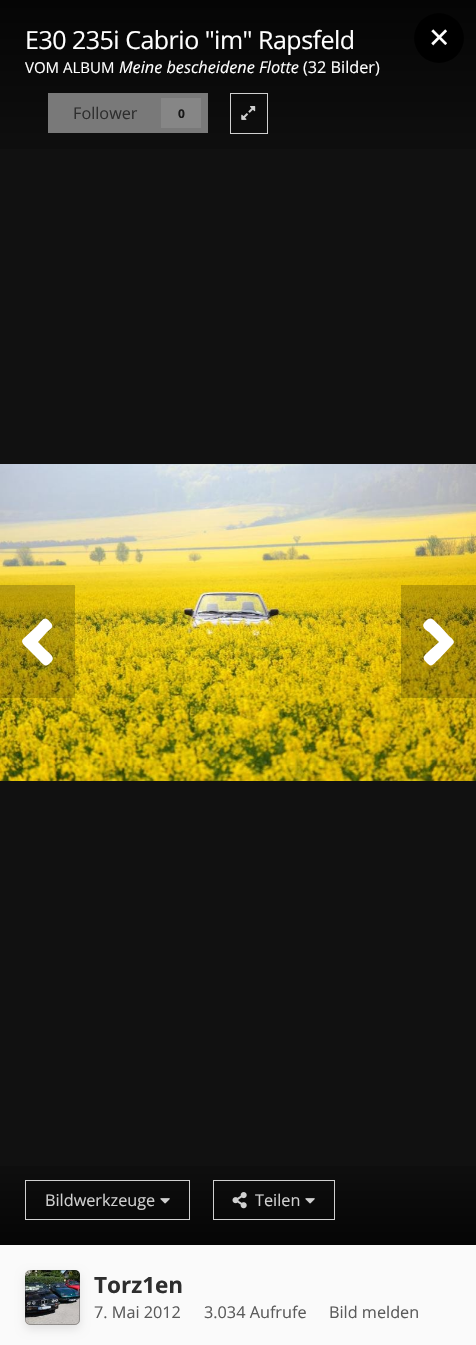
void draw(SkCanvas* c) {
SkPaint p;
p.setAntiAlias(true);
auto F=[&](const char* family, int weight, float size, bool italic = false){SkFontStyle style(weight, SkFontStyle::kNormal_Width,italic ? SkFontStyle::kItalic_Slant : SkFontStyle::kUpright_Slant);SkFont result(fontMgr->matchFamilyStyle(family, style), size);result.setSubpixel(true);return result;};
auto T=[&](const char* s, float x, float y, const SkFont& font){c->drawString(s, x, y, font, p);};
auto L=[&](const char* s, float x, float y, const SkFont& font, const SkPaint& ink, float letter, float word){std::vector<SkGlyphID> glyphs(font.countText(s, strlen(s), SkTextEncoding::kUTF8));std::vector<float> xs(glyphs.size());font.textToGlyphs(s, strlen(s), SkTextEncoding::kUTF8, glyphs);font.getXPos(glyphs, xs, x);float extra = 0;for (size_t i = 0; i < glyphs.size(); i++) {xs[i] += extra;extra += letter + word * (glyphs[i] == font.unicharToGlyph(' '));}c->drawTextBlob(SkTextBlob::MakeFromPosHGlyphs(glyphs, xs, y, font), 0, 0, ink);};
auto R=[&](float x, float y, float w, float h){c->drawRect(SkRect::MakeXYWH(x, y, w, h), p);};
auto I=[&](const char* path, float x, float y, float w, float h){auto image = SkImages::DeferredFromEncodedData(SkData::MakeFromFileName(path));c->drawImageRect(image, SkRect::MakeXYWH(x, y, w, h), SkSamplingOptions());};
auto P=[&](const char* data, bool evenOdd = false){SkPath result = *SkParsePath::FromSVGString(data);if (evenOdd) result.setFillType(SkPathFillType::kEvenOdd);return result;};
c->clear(0xff111111);
{
const SkColor colors[] = {0xff050505,0xff111111};
const float stops[] = {0,1};
const SkPoint ends[] = {{238,0}, {238,188}};
p.setShader(SkGradientShader::MakeLinear(ends, colors, stops, 2, SkTileMode::kClamp));
p.setAlpha(255);
}
R(0,0,476,149);
auto f1 = F("Open Sans",400,25);
p.setShader(nullptr);
p.setColor(0xffffffff);
L("E30 235i Cabrio \"im\" Rapsfeld",25,49,f1,p,-.5,0);
auto f2 = F("Open Sans",400,15);
T("VOM ALBUM",25,73,f2);
auto f3 = F("Open Sans",400,16.25,true);
T("Meine bescheidene Flotte",119,73,f3);
auto f4 = F("Open Sans",400,16.25);
T("(32 Bilder)",303,73,f4);
p.setColor(0xff797979);
R(48,93,160,40);
p.setColor(0xff2e2e2e);
T("Follower",73,119,f4);
p.setColor(0xff868686);
R(161,98,40,30);
auto f5 = F("Open Sans",700,12);
p.setColor(0xff171717);
T("0",178,118,f5);
p.setStroke(true);
p.setStrokeWidth(1);
p.setColor(0xffd0d0d0);
c->drawRect(SkRect::MakeXYWH(230.5,93.5,37,40),p);
I("1.png",241,106,15,14);
p.setStroke(false);
{
const SkColor colors[] = {0xff111111,0xff050505};
const float stops[] = {0,1};
const SkPoint ends[] = {{238,1145}, {238,1245}};
p.setShader(SkGradientShader::MakeLinear(ends, colors, stops, 2, SkTileMode::kClamp));
p.setAlpha(255);
}
R(0,1166,476,79);
p.setStroke(true);
p.setShader(nullptr);
p.setColor(0xffd0d0d0);
c->drawRect(SkRect::MakeXYWH(25.5,1180.5,164,39),p);
p.setStroke(false);
T("Bildwerkzeuge",45,1206,f4);
I("2.png",160,1198,10,6);
p.setStroke(true);
c->drawRect(SkRect::MakeXYWH(213.5,1180.5,121,39),p);
I("3.png",232,1192,15,17);
p.setStroke(false);
T("Teilen",255,1206,f4);
I("2.png",305,1198,10,6);
I("4.png",0,464,476,317);
p.setColor(0x33000000);
R(0,585,75,113);
p.setColor(0xffffffff);
c->drawPath(P("M23 639l14-13c6-6 7-11 13-4c5 5 1 6-3 10l-9 10l9 9c2 2 8 6 5 10c-7 8-8 4-15-3l-10-10c-2-2-7-6-4-9z"),p);
p.setColor(0x33000000);
R(401,585,75,113);
p.setColor(0xffffffff);
c->drawPath(P("M453 644l-13 14c-7 6-8 11-14 4c-5-5-1-7 3-11l10-9l-10-10c-2-1-8-5-5-9c7-8 8-4 16 3l9 10c2 2 7 5 4 8z"),p);
p.setColor(0xfffafafa);
R(0,1245,476,100);
I("5.png",25,1270,55,55);
c->save();
c->clipPath(P("M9 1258h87v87h-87zm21 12h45c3 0 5 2 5 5v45c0 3-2 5-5 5h-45c-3 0-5-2-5-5v-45c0-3 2-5 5-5z",true),true);
p.setColor(0x1a000000);
p.setMaskFilter(SkMaskFilter::MakeBlur(kNormal_SkBlurStyle, 5));
c->drawRoundRect(SkRect::MakeXYWH(25,1274,55,55),5,5,p);
p.setMaskFilter(nullptr);
c->restore();
p.setStroke(true);
p.setColor(0x4d222222);
c->drawRoundRect(SkRect::MakeXYWH(25.5,1270.5,54,54),4.5,4.5,p);
auto f6 = F("Open Sans",700,22.5);
p.setStroke(false);
p.setColor(0xff2e2e2e);
T("Torz1en",94,1293,f6);
p.setColor(0xff5b5b5b);
T("7. Mai 2012",94,1318,f4);
T("3.034 Aufrufe",204,1318,f4);
T("Bild melden",329,1318,f4);
p.setColor(0xff000000);
c->drawCircle(439,38,25,p);
auto f7 = F("Liberation Sans",400,35);
p.setColor(0xffffffff);
T("×",429,49,f7);
}
